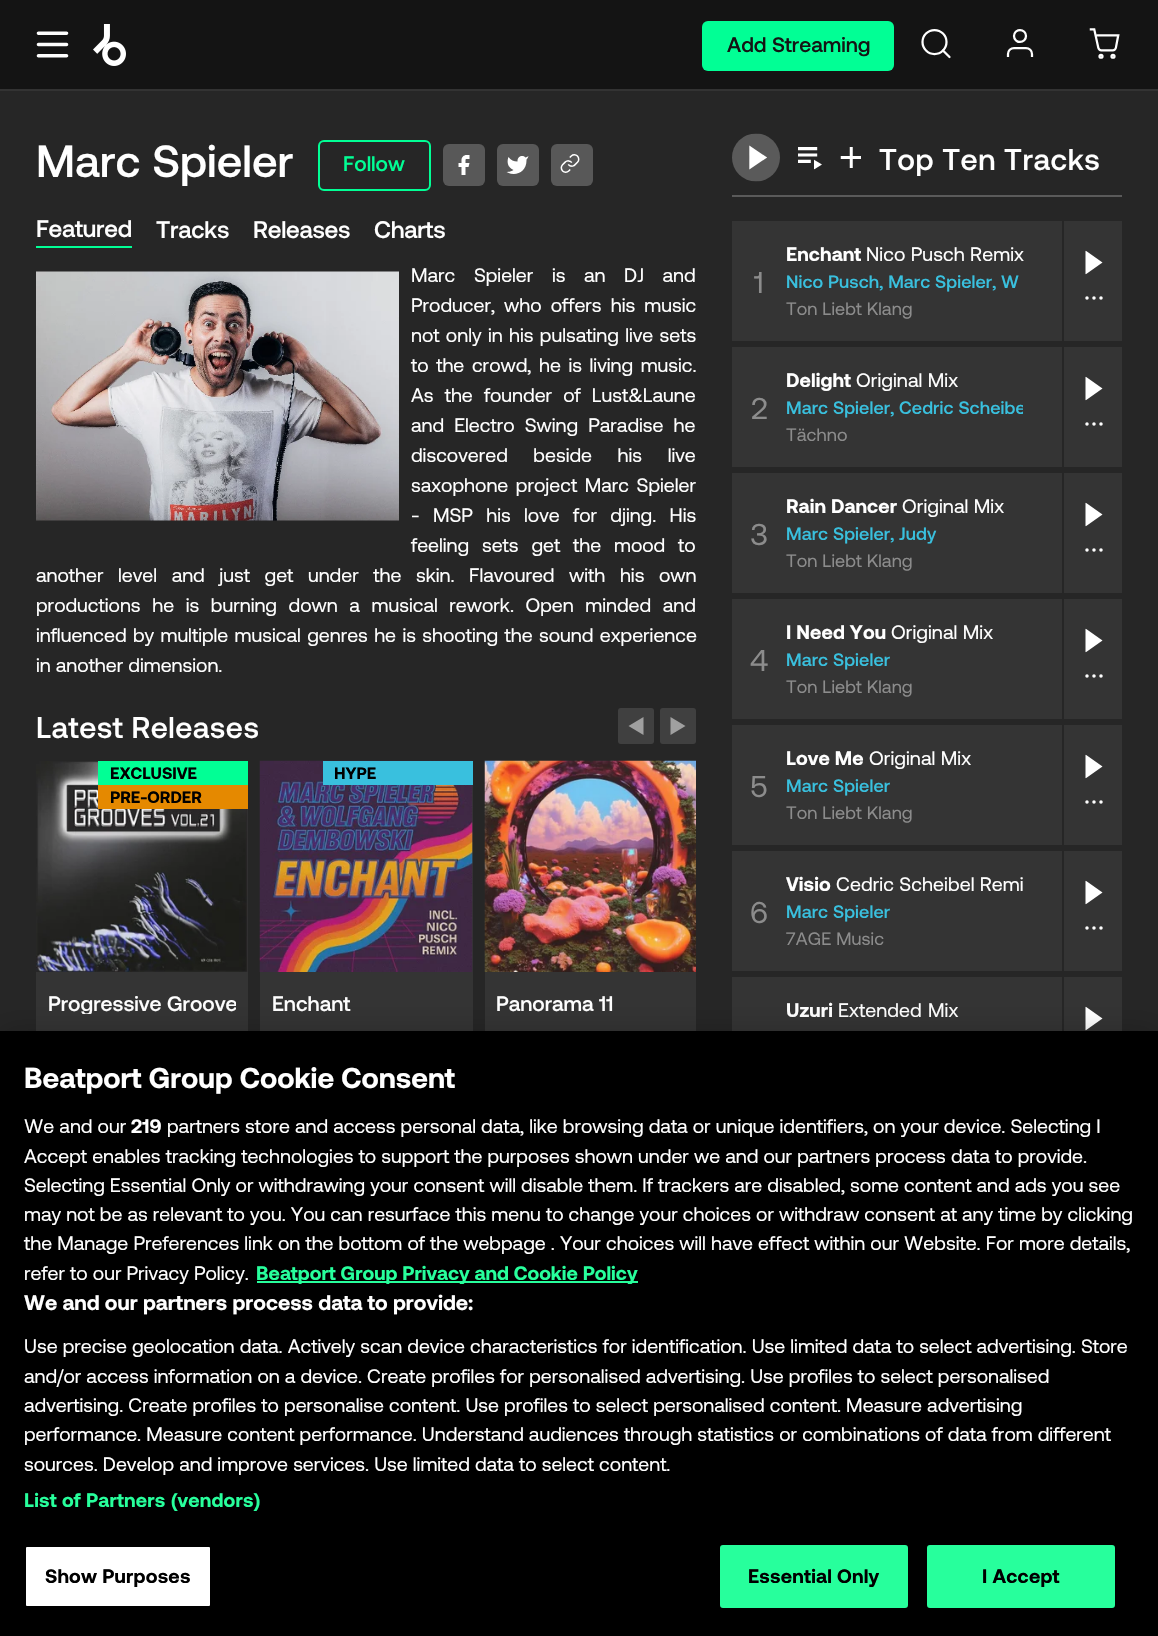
void draw(SkCanvas* c) {
SkPaint p;
p.setAntiAlias(true);
auto F=[&](const char* family, int weight, float size, bool italic = false){SkFontStyle style(weight, SkFontStyle::kNormal_Width,italic ? SkFontStyle::kItalic_Slant : SkFontStyle::kUpright_Slant);SkFont result(fontMgr->matchFamilyStyle(family, style), size);result.setSubpixel(true);return result;};
auto T=[&](const char* s, float x, float y, const SkFont& font){c->drawString(s, x, y, font, p);};
auto L=[&](const char* s, float x, float y, const SkFont& font, const SkPaint& ink, float letter, float word){std::vector<SkGlyphID> glyphs(font.countText(s, strlen(s), SkTextEncoding::kUTF8));std::vector<float> xs(glyphs.size());font.textToGlyphs(s, strlen(s), SkTextEncoding::kUTF8, glyphs);font.getXPos(glyphs, xs, x);float extra = 0;for (size_t i = 0; i < glyphs.size(); i++) {xs[i] += extra;extra += letter + word * (glyphs[i] == font.unicharToGlyph(' '));}c->drawTextBlob(SkTextBlob::MakeFromPosHGlyphs(glyphs, xs, y, font), 0, 0, ink);};
auto R=[&](float x, float y, float w, float h){c->drawRect(SkRect::MakeXYWH(x, y, w, h), p);};
auto Q=[&](float x, float y, float w, float h, float radius){c->drawRoundRect(SkRect::MakeXYWH(x, y, w, h), radius, radius, p);};
auto I=[&](const char* path, float x, float y, float w, float h){auto image = SkImages::DeferredFromEncodedData(SkData::MakeFromFileName(path));c->drawImageRect(image, SkRect::MakeXYWH(x, y, w, h), SkSamplingOptions());};
c->clear(0xff262626);
p.setColor(0xff141414);
R(0,0,1158,89);
p.setColor(0xff333333);
R(0,89,1158,2);
I("1.png",36,31,33,27);
I("2.png",93,24,33,42);
p.setColor(0xff01ff95);
Q(702,21,192,50,6);
auto f1 = F("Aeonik",500,21);
p.setColor(0xff141414);
T("Add Streaming",727,52,f1);
I("3.png",921,29,30,30);
I("4.png",1006,29,28,28);
I("5.png",1089,28,31,31);
auto f2 = F("Aeonik",500,45);
p.setColor(0xffffffff);
T("Marc Spieler",36,177,f2);
p.setStroke(true);
p.setStrokeWidth(2);
p.setColor(0xff01ff95);
c->drawRoundRect(SkRect::MakeXYWH(319,141,111,49),5,5,p);
p.setStroke(false);
T("Follow",343,171,f1);
p.setColor(0xff585858);
Q(443,144,42,42,6);
I("6.png",458,155,12,20);
Q(497,144,42,42,6);
I("7.png",506,156,23,18);
Q(551,144,42,42,6);
I("8.png",560,154,20,19);
p.setColor(0xff01ff95);
R(36,246,96,2);
auto f3 = F("Aeonik",500,24);
p.setColor(0xffffffff);
L("Featured",36,237,f3,p,-.25,0);
L("Tracks",156,238,f3,p,-.25,0);
L("Releases",253,238,f3,p,-.25,0);
L("Charts",374,238,f3,p,-.25,0);
auto f4 = F("Aeonik",400,19.5);
L("Marc Spieler is an DJ and",411,282,f4,p,0,13.5);
L("Producer, who offers his music",411,312,f4,p,0,4);
L("not only in his pulsating live sets",411,342,f4,p,0,1.25);
L("to the crowd, he is living music.",411,372,f4,p,0,2.5);
L("As the founder of Lust&Laune",411,402,f4,p,0,6);
L("and Electro Swing Paradise he",411,432,f4,p,0,5);
L("discovered beside his live",411,462,f4,p,0,20.5);
L("saxophone project Marc Spieler",411,492,f4,p,0,2.5);
L("- MSP his love for djing. His",411,522,f4,p,0,8.25);
L("feeling sets get the mood to",411,552,f4,p,0,7.75);
L("another level and just get under the skin. Flavoured with his own",36,582,f4,p,0,9.5);
L("productions he is burning down a musical rework. Open minded and",36,612,f4,p,0,6.5);
L("influenced by multiple musical genres he is shooting the sound experience",36,642,f4,p,0,1.25);
T("in another dimension.",36,672,f4);
I("9.png",36,271,363,250);
auto f5 = F("Aeonik",500,30);
L("Latest Releases",36,738,f5,p,.5,0);
p.setColor(0xff404040);
Q(618,708,36,36,3);
I("10.png",628,717,16,18);
Q(660,708,36,36,3);
I("11.png",670,717,16,18);
p.setColor(0xff343434);
R(36,809,212,222);
I("12.png",36,761,212,211);
p.setColor(0xff01ff95);
R(98,761,150,24);
auto f6 = F("Aeonik",700,16.5);
p.setColor(0xff000000);
T("EXCLUSIVE",110,779,f6);
p.setColor(0xffe58900);
R(98,785,150,24);
p.setColor(0xff000000);
T("PRE-ORDER",110,803,f6);
c->save();
c->clipRect(SkRect::MakeXYWH(48,984,188,30));
p.setColor(0xffffffff);
T("Progressive Groove",48,1011,f1);
c->restore();
p.setColor(0xff343434);
R(260,785,213,246);
I("13.png",259,760,214,212);
p.setColor(0xff39c0de);
R(323,761,150,24);
p.setColor(0xff000000);
T("HYPE",334,779,f6);
p.setColor(0xffffffff);
T("Enchant",272,1011,f1);
p.setColor(0xff343434);
R(485,972,211,59);
I("14.png",484,760,212,212);
p.setColor(0xffffffff);
T("Panorama 11",496,1011,f1);
I("15.png",732,133,48,49);
I("16.png",798,147,24,23);
I("17.png",840,147,21,21);
L("Top Ten Tracks",879,170,f5,p,.5,0);
p.setColor(0xff5a5a5a);
R(732,195,390,2);
p.setColor(0xff343434);
R(732,221,390,120);
auto f7 = F("Aeonik",400,30);
p.setColor(0xff8c8c8c);
T("1",754,293,f7);
auto f8 = F("Aeonik",700,19.5);
p.setColor(0xffffffff);
L("Enchant",786,261,f8,p,.1,0);
L("Nico Pusch Remix",866,261,f4,p,.1,0);
auto f9 = F("Aeonik",500,18);
p.setColor(0xff39c0de);
L("Nico Pusch, Marc Spieler,",786,288,f9,p,.1,0);
L("W",1001,288,f9,p,.1,1);
auto f10 = F("Aeonik",400,18);
p.setColor(0xff8c8c8c);
L("Ton Liebt Klang",786,315,f10,p,.1,0);
p.setColor(0xff262626);
R(1062,221,2,120);
I("18.png",1085,250,18,25);
I("19.png",1085,296,18,4);
p.setColor(0xff343434);
R(732,347,390,120);
p.setColor(0xff8c8c8c);
T("2",751,419,f7);
p.setColor(0xffffffff);
L("Delight",786,387,f8,p,.1,0);
L("Original Mix",856,387,f4,p,.1,0);
p.setColor(0xff39c0de);
L("Marc Spieler,",786,414,f9,p,.1,0);
c->save();
c->clipRect(SkRect::MakeXYWH(786,395,237,24));
L("Cedric Scheibe",899,414,f9,p,.1,0);
c->restore();
p.setColor(0xff8c8c8c);
L("Tächno",786,441,f10,p,.1,0);
p.setColor(0xff262626);
R(1062,347,2,120);
I("20.png",1085,376,18,25);
I("19.png",1085,422,18,4);
p.setColor(0xff343434);
R(732,473,390,120);
p.setColor(0xff8c8c8c);
T("3",750,545,f7);
p.setColor(0xffffffff);
L("Rain Dancer",786,513,f8,p,.1,0);
L("Original Mix",902,513,f4,p,.1,0);
p.setColor(0xff39c0de);
L("Marc Spieler, Judy",786,540,f9,p,.1,0);
p.setColor(0xff8c8c8c);
L("Ton Liebt Klang",786,567,f10,p,.1,0);
p.setColor(0xff262626);
R(1062,473,2,120);
I("20.png",1085,502,18,25);
I("19.png",1085,548,18,4);
p.setColor(0xff343434);
R(732,599,390,120);
p.setColor(0xff8c8c8c);
T("4",750,671,f7);
p.setColor(0xffffffff);
L("I Need You",786,639,f8,p,.1,0);
L("Original Mix",891,639,f4,p,.1,0);
p.setColor(0xff39c0de);
L("Marc Spieler",786,666,f9,p,.1,0);
p.setColor(0xff8c8c8c);
L("Ton Liebt Klang",786,693,f10,p,.1,0);
p.setColor(0xff262626);
R(1062,599,2,120);
I("20.png",1085,628,18,25);
I("19.png",1085,674,18,4);
p.setColor(0xff343434);
R(732,725,390,120);
p.setColor(0xff8c8c8c);
T("5",750,797,f7);
p.setColor(0xffffffff);
L("Love Me",786,765,f8,p,.1,0);
L("Original Mix",869,765,f4,p,.1,0);
p.setColor(0xff39c0de);
L("Marc Spieler",786,792,f9,p,.1,0);
p.setColor(0xff8c8c8c);
L("Ton Liebt Klang",786,819,f10,p,.1,0);
p.setColor(0xff262626);
R(1062,725,2,120);
I("20.png",1085,754,18,25);
I("19.png",1085,800,18,4);
p.setColor(0xff343434);
R(732,851,390,120);
p.setColor(0xff8c8c8c);
T("6",750,923,f7);
p.setColor(0xffffffff);
L("Visio",786,891,f8,p,.1,0);
L("Cedric Scheibel Remi",836,891,f4,p,.1,0);
p.setColor(0xff39c0de);
L("Marc Spieler",786,918,f9,p,.1,0);
p.setColor(0xff8c8c8c);
L("7AGE Music",786,945,f10,p,.1,0);
p.setColor(0xff262626);
R(1062,851,2,120);
I("20.png",1085,880,18,25);
I("19.png",1085,926,18,4);
p.setColor(0xff343434);
R(732,977,390,54);
p.setColor(0xffffffff);
L("Uzuri",786,1017,f8,p,.1,0);
L("Extended Mix",838,1017,f4,p,.1,1);
p.setColor(0xff262626);
R(1062,977,2,54);
I("21.png",1085,1006,18,25);
p.setColor(0x33000000);
p.setMaskFilter(SkMaskFilter::MakeBlur(kNormal_SkBlurStyle, 13.5));
c->drawRect(SkRect::MakeXYWH(0,1031,1158,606),p);
p.setMaskFilter(nullptr);
p.setColor(0xff000000);
R(0,1031,1158,605);
auto f11 = F("Aeonik",700,28.75);
p.setColor(0xffffffff);
T("Beatport Group Cookie Consent",24,1088,f11);
T("We and our",24,1133,f4);
T("219",131,1133,f8);
T("partners store and access personal data, like browsing data or unique identifiers, on your device. Selecting I",167,1133,f4);
T("Accept enables tracking technologies to support the purposes shown under we and our partners process data to provide.",24,1163,f4);
T("Selecting Essential Only or withdrawing your consent will disable them. If trackers are disabled, some content and ads you see",24,1192,f4);
T("may not be as relevant to you. You can resurface this menu to change your choices or withdraw consent at any time by clicking",24,1221,f4);
T("the Manage Preferences link on the bottom of the webpage . Your choices will have effect within our Website. For more details,",24,1250,f4);
T("refer to our Privacy Policy.",24,1280,f4);
p.setColor(0xff27ff9c);
R(257,1281,381,2);
T("Beatport Group Privacy and Cookie Policy",256,1280,f8);
auto f12 = F("Aeonik",700,21.1);
p.setColor(0xffffffff);
T("We and our partners process data to provide:",24,1310,f12);
T("Use precise geolocation data. Actively scan device characteristics for identification. Use limited data to select advertising. Store",24,1353,f4);
T("and/or access information on a device. Create profiles for personalised advertising. Use profiles to select personalised",24,1383,f4);
T("advertising. Create profiles to personalise content. Use profiles to select personalised content. Measure advertising",24,1412,f4);
T("performance. Measure content performance. Understand audiences through statistics or combinations of data from different",24,1441,f4);
T("sources. Develop and improve services. Use limited data to select content.",24,1471,f4);
p.setColor(0xff27ff9c);
L("List of Partners (vendors)",24,1507,f8,p,.2,0);
p.setColor(0xffffffff);
c->drawRoundRect(SkRect::MakeXYWH(25,1546,186,61),2,2,p);
p.setStroke(true);
p.setColor(0xff000000);
c->drawRoundRect(SkRect::MakeXYWH(25,1546,186,61),2,2,p);
p.setStroke(false);
L("Show Purposes",45,1583,f8,p,.2,0);
p.setColor(0xff27ff9c);
c->drawRoundRect(SkRect::MakeXYWH(721,1546,186,61),2,2,p);
p.setStroke(true);
c->drawRoundRect(SkRect::MakeXYWH(721,1546,186,61),2,2,p);
p.setStroke(false);
p.setColor(0xff000000);
L("Essential Only",748,1583,f8,p,.2,0);
p.setColor(0xff27ff9c);
c->drawRoundRect(SkRect::MakeXYWH(928,1546,186,61),2,2,p);
p.setStroke(true);
c->drawRoundRect(SkRect::MakeXYWH(928,1546,186,61),2,2,p);
p.setStroke(false);
p.setColor(0xff000000);
L("I Accept",982,1583,f8,p,.2,0);
}
